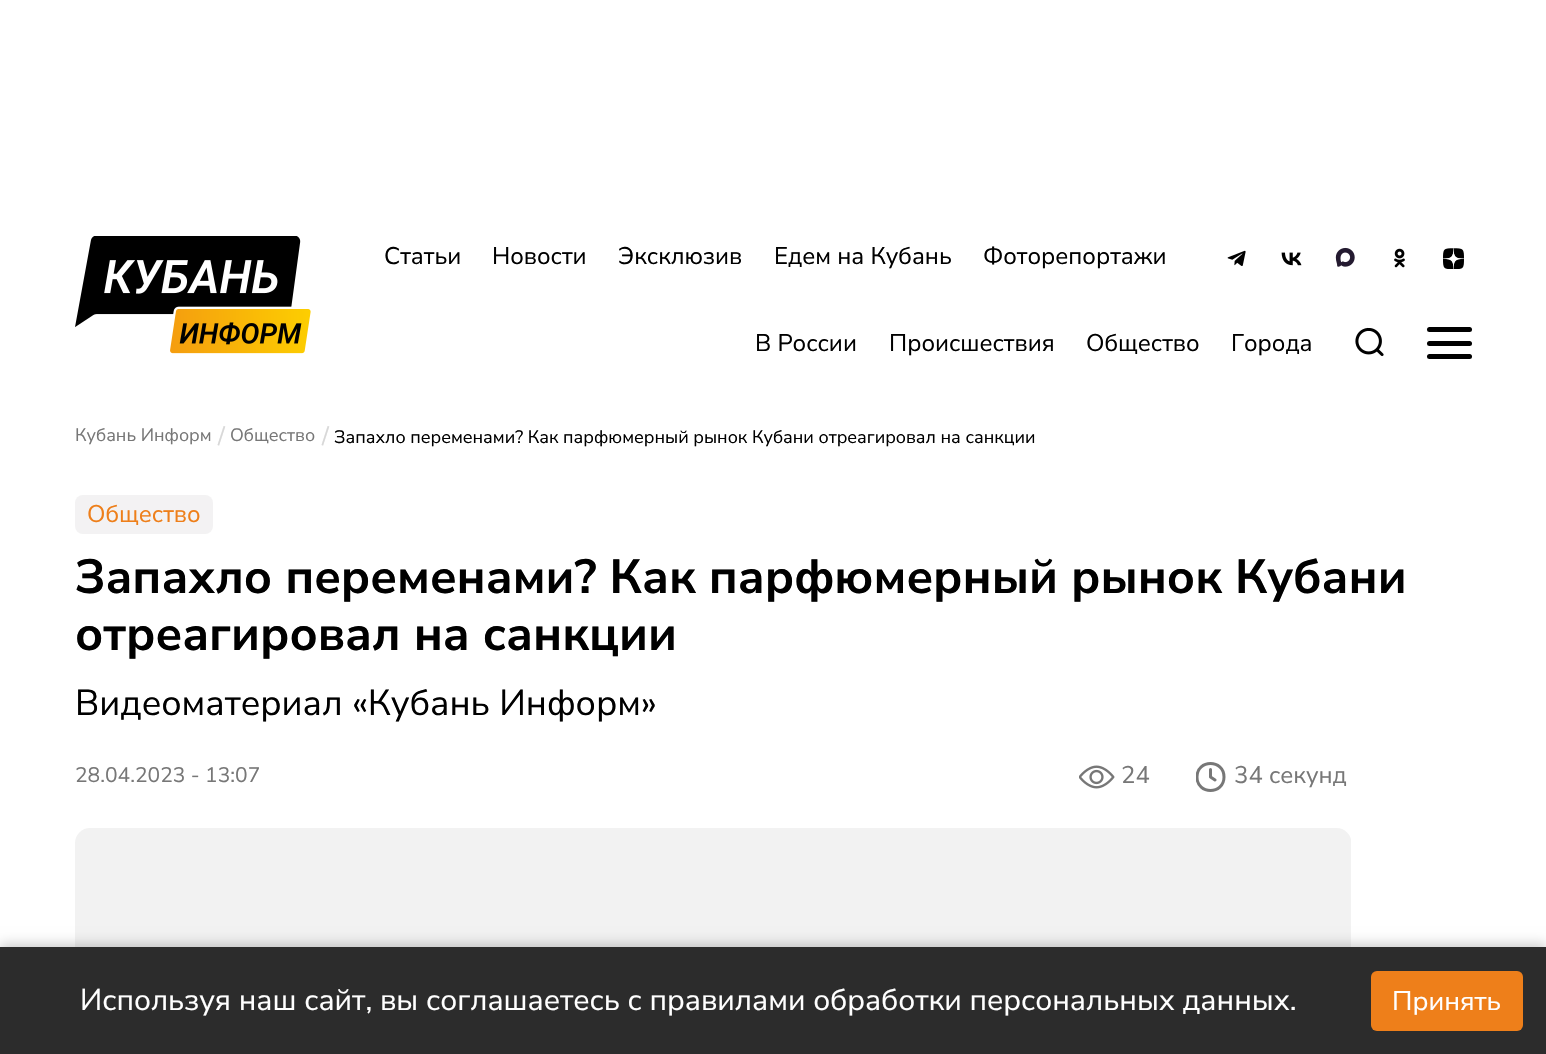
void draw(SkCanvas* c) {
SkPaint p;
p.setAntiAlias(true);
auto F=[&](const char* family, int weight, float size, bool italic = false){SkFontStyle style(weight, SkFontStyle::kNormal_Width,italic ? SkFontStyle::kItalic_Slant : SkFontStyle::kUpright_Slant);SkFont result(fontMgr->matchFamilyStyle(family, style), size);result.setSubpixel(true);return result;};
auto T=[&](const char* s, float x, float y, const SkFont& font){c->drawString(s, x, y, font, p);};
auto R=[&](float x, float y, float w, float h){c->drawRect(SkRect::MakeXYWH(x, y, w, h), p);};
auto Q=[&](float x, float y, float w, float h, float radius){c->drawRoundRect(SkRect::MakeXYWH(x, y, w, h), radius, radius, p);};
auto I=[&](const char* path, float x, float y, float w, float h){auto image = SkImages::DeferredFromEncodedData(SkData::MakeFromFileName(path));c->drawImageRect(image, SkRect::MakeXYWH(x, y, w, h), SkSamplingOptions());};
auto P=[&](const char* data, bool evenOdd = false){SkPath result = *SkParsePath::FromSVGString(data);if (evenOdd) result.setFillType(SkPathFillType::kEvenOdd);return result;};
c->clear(0xffffffff);
I("1.png",75,236,236,118);
auto f1 = F("Nunito Sans",400,24);
p.setColor(0xff000000);
T("Статьи",384,264,f1);
T("Новости",492,264,f1);
T("Эксклюзив",618,264,f1);
T("Едем на Кубань",774,264,f1);
T("Фоторепортажи",983,264,f1);
I("2.png",1227,250,19,16);
I("3.png",1281,252,21,14);
I("4.png",1335,247,20,20);
I("5.png",1394,248,11,20);
I("6.png",1443,248,21,21);
T("В России",755,351,f1);
T("Происшествия",889,351,f1);
T("Общество",1086,351,f1);
T("Города",1231,351,f1);
I("7.png",1355,327,29,30);
Q(1427,341,45,5,2.5);
Q(1427,327,45,5,2.5);
Q(1427,354,45,5,2.5);
auto f2 = F("Nunito Sans",400,18);
p.setColor(0xff777777);
T("Кубань Информ",75,441,f2);
p.setColor(0xffd8d8d8);
T("/",218,444,f1);
p.setColor(0xff777777);
T("Общество",230,441,f2);
p.setColor(0xffd8d8d8);
T("/",322,444,f1);
p.setColor(0xff000000);
T("Запахло переменами? Как парфюмерный рынок Кубани отреагировал на санкции",334,443,f2);
p.setColor(0xfff3f2f3);
Q(75,495,138,39,8);
p.setColor(0xffee7f1a);
T("Общество",87,522,f1);
auto f3 = F("Nunito Sans",700,48);
p.setColor(0xff000000);
T("Запахло переменами? Как парфюмерный рынок Кубани",75,593,f3);
T("отреагировал на санкции",75,650,f3);
auto f4 = F("Nunito Sans",400,36);
T("Видеоматериал «Кубань Информ»",75,715,f4);
auto f5 = F("Nunito Sans",400,21);
p.setColor(0xff777777);
T("28.04.2023 - 13:07",75,782,f5);
I("8.png",1079,765,36,24);
T("24",1121,783,f1);
c->save();
c->clipRect(SkRect::MakeXYWH(1196,762,30,30));
p.setStroke(true);
p.setStrokeWidth(3);
p.setStrokeCap(SkPaint::kRound_Cap);
p.setStrokeJoin(SkPaint::kRound_Join);
c->drawPath(P("M1215 780l-4.5-3v-7.5m-13.5 7.5c0 18 27 18 27 0c0-18-27-18-27 0z"),p);
c->restore();
p.setStroke(false);
T("34 секунд",1234,783,f1);
I("9.png",75,828,1276,119);
p.setColor(0x33000000);
p.setMaskFilter(SkMaskFilter::MakeBlur(kNormal_SkBlurStyle, 6));
c->drawRect(SkRect::MakeXYWH(0,944,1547,108),p);
p.setMaskFilter(nullptr);
p.setColor(0xff2c2c2c);
R(0,947,1546,107);
auto f6 = F("Nunito Sans",400,30);
p.setColor(0xffffffff);
T("Используя наш сайт, вы соглашаетесь с правилами обработки персональных данных.",80,1010,f6);
p.setColor(0xffee7f1a);
Q(1371,971,152,60,6);
auto f7 = F("Nunito Sans",400,27);
p.setColor(0xffffffff);
T("Принять",1392,1010,f7);
}
